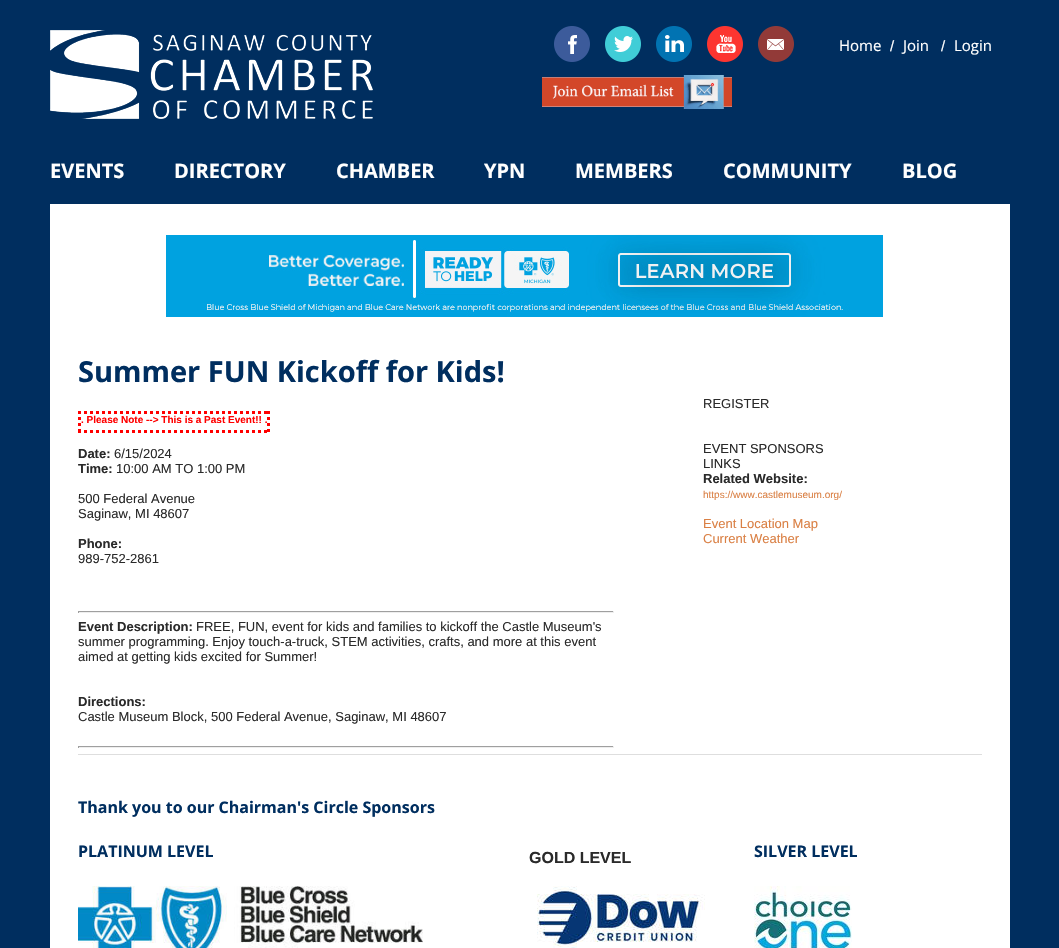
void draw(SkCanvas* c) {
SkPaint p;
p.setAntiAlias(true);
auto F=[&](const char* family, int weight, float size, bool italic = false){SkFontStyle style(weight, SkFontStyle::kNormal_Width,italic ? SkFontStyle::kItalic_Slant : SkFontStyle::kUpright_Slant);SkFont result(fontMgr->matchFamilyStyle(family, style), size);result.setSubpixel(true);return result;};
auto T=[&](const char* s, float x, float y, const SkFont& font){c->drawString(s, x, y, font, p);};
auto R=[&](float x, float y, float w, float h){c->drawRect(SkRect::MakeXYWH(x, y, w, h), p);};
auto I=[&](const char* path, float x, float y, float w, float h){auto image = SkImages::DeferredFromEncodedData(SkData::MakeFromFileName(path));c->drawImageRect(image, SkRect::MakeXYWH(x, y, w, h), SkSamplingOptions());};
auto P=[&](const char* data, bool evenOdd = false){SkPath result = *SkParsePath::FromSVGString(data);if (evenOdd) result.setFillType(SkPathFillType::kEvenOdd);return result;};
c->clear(0xff002e5f);
I("1.png",50,30,323,89);
I("2.png",554,26,36,36);
I("3.png",605,26,36,36);
I("4.png",656,26,36,36);
I("5.png",707,26,36,36);
I("6.png",758,26,36,36);
auto f1 = F("Open Sans",400,15);
p.setColor(0xffffffff);
T("Home",839,51,f1);
auto f2 = F("Liberation Sans",400,15);
T("/",890,51,f2);
T("Join",903,51,f1);
T("/",941,51,f2);
T("Login",954,51,f1);
I("7.png",542,75,190,34);
auto f3 = F("Open Sans",700,20);
T("EVENTS",50,178,f3);
T("DIRECTORY",174,178,f3);
T("CHAMBER",336,178,f3);
T("YPN",484,178,f3);
T("MEMBERS",575,178,f3);
T("COMMUNITY",723,178,f3);
T("BLOG",902,178,f3);
R(50,204,960,744);
I("8.png",166,234,717,83);
auto f4 = F("Open Sans",700,29);
p.setColor(0xff002e5f);
T("Summer FUN Kickoff for Kids!",78,382,f4);
p.setStroke(true);
p.setStrokeWidth(3);
p.setColor(0xffff0000);
p.setPathEffect(SkDashPathEffect::Make({{3,3}}, 0));
c->drawPath(P("M78 412.5h192"),p);
p.setPathEffect(nullptr);
p.setPathEffect(SkDashPathEffect::Make({{3,3}}, 0));
c->drawPath(P("M268.5 411v22"),p);
p.setPathEffect(nullptr);
p.setPathEffect(SkDashPathEffect::Make({{3,3}}, 0));
c->drawPath(P("M78 431.5h192"),p);
p.setPathEffect(nullptr);
p.setPathEffect(SkDashPathEffect::Make({{3,3}}, 0));
c->drawPath(P("M79.5 411v22"),p);
p.setPathEffect(nullptr);
auto f5 = F("Liberation Sans",700,10);
p.setStroke(false);
T(". Please Note --> This is a Past Event!! .",81,423,f5);
auto f6 = F("Liberation Sans",700,13);
p.setColor(0xff2a2a2a);
T("Date:",78,458,f6);
auto f7 = F("Liberation Sans",400,13);
T("6/15/2024",114,458,f7);
T("Time:",78,473,f6);
T("10:00 AM TO 1:00 PM",116,473,f7);
T("500 Federal Avenue",78,503,f7);
T("Saginaw, MI 48607",78,518,f7);
T("Phone:",78,548,f6);
T("989-752-2861",78,563,f7);
p.setColor(0xff9f9f9f);
R(78,611,536,1);
p.setColor(0xffeeeeee);
R(613,611,1,2);
R(78,612,536,1);
p.setColor(0xff9f9f9f);
R(78,611,1,2);
p.setColor(0xff2a2a2a);
T("Event Description:",78,631,f6);
T("FREE, FUN, event for kids and families to kickoff the Castle Museum's",196,631,f7);
T("summer programming. Enjoy touch-a-truck, STEM activities, crafts, and more at this event",78,646,f7);
T("aimed at getting kids excited for Summer!",78,661,f7);
T("Directions:",78,706,f6);
T("Castle Museum Block, 500 Federal Avenue, Saginaw, MI 48607",78,721,f7);
p.setColor(0xff9f9f9f);
R(78,746,536,1);
p.setColor(0xffeeeeee);
R(613,746,1,2);
R(78,747,536,1);
p.setColor(0xff9f9f9f);
R(78,746,1,2);
p.setColor(0xff2a2a2a);
T("REGISTER",703,408,f7);
T("EVENT SPONSORS",703,453,f7);
T("LINKS",703,468,f7);
T("Related Website:",703,483,f6);
auto f8 = F("Liberation Sans",400,10);
p.setColor(0xffda8044);
T("https://www.castlemuseum.org/",703,498,f8);
T("Event Location Map",703,528,f7);
T("Current Weather",703,543,f7);
p.setColor(0xffdedede);
R(78,754,904,1);
auto f9 = F("Open Sans",700,16);
p.setColor(0xff002e5f);
T("Thank you to our Chairman's Circle Sponsors",78,813,f9);
T("PLATINUM LEVEL",78,857,f9);
I("9.png",78,886,345,62);
auto f10 = F("Liberation Sans",700,16);
p.setColor(0xff2a2a2a);
T("GOLD LEVEL",529,863,f10);
I("10.png",537,886,168,62);
p.setColor(0xff002e5f);
T("SILVER LEVEL",754,857,f9);
I("11.png",754,886,98,62);
}
